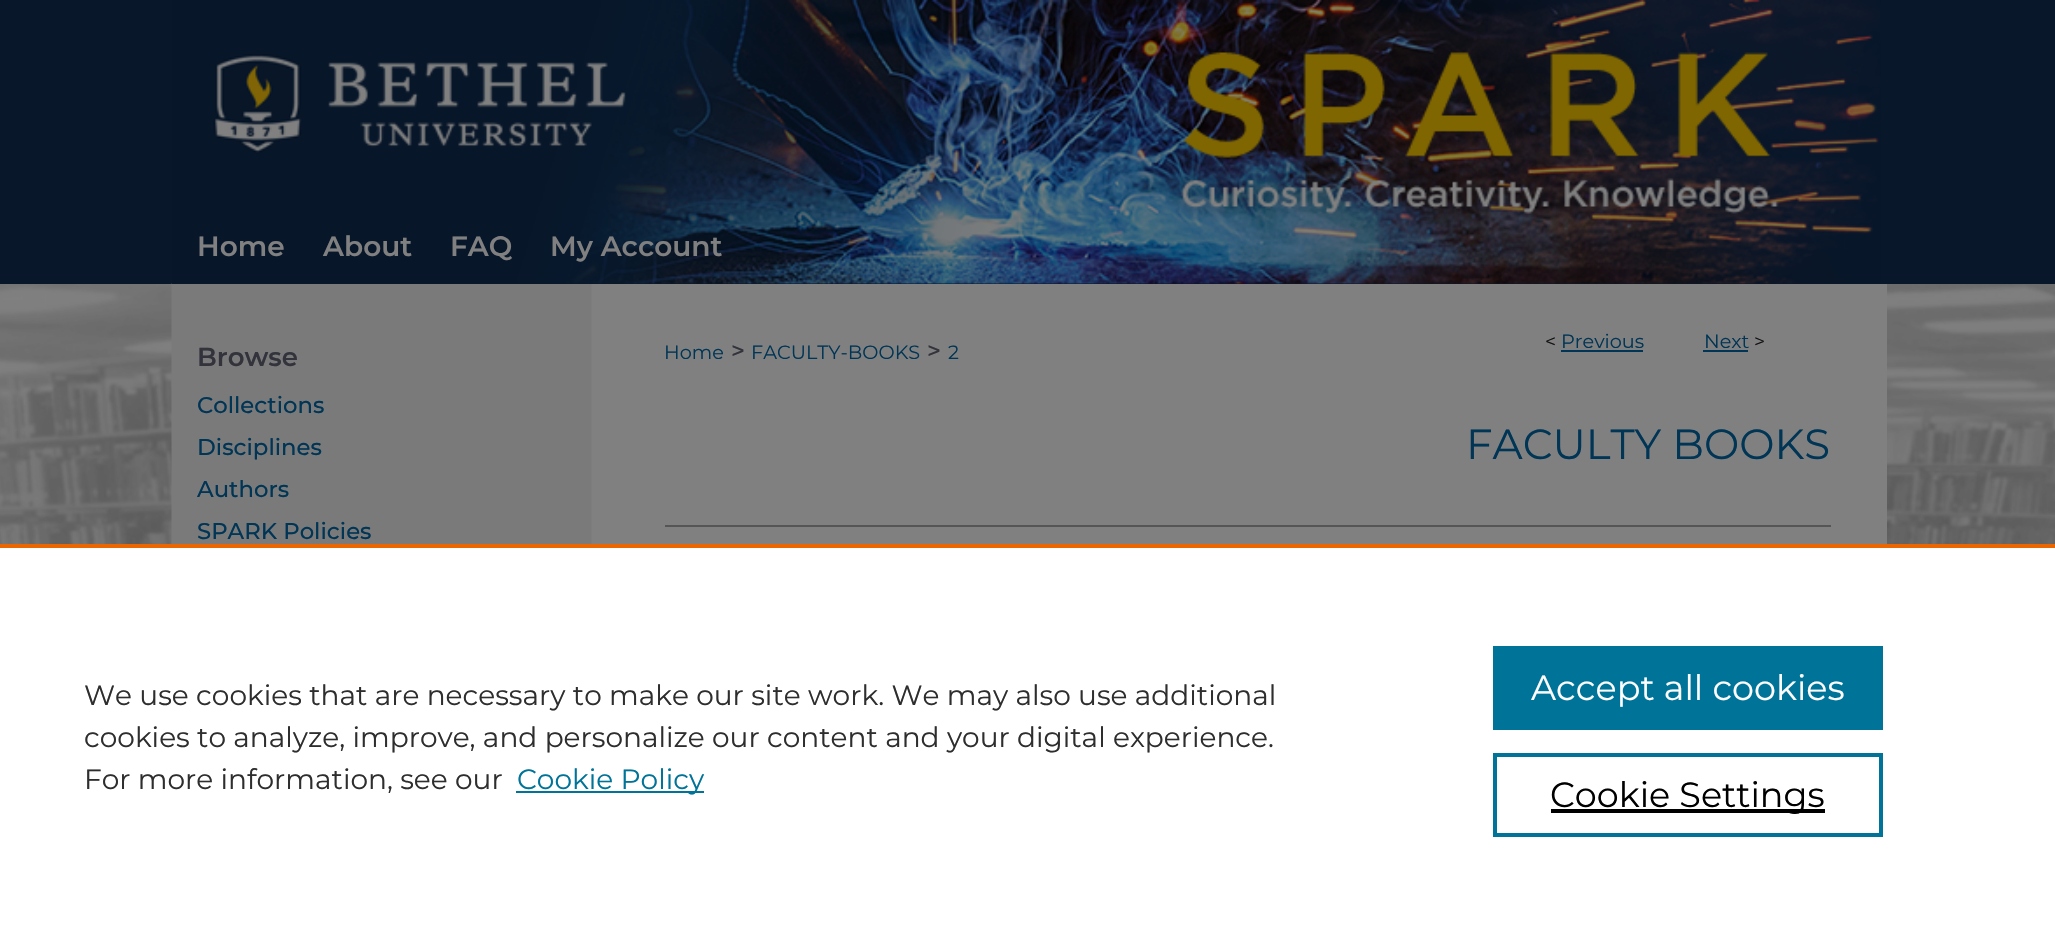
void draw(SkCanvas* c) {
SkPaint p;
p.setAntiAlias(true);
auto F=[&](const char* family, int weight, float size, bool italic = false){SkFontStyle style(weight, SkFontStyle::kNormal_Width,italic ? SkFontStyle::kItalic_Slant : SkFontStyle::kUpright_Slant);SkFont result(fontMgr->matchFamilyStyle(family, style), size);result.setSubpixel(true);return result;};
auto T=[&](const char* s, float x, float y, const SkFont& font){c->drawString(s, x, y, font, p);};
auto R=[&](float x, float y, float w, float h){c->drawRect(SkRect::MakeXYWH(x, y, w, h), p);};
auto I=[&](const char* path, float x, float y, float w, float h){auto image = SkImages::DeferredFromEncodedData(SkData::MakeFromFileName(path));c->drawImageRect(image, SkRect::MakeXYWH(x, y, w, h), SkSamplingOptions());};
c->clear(0xffffffff);
I("1.png",0,284,2055,260);
p.setColor(0xff08172a);
R(0,0,2055,284);
I("3.png",171,283,438,261);
R(172,283,437,1);
I("2.png",171,0,1710,284);
auto f1 = F("Montserrat",600,28);
p.setColor(0xff808080);
T("Home",197,256,f1);
T("About",323,256,f1);
T("FAQ",450,256,f1);
T("My Account",550,256,f1);
auto f2 = F("Montserrat",600,26);
p.setColor(0xff33333c);
T("Browse",197,366,f2);
auto f3 = F("Montserrat",500,22.75);
p.setColor(0xff003555);
T("Collections",197,413,f3);
T("Disciplines",197,455,f3);
T("Authors",197,497,f3);
T("SPARK Policies",197,539,f3);
p.setColor(0xff808080);
R(609,284,1278,260);
auto f4 = F("Montserrat",400,19.25);
p.setColor(0xff111111);
T("<",1545,348,f4);
p.setColor(0xff003555);
T("Previous",1561,348,f4);
R(1561,350,82,2);
T("Next",1704,348,f4);
R(1703,350,45,2);
p.setColor(0xff111111);
T(">",1754,348,f4);
p.setColor(0xff003555);
T("Home",664,359,f4);
auto f5 = F("Montserrat",500,24);
p.setColor(0xff33333c);
T(">",731,359,f5);
p.setColor(0xff003555);
T("FACULTY-BOOKS",751,359,f4);
p.setColor(0xff33333c);
T(">",927,359,f5);
p.setColor(0xff003555);
T("2",948,359,f4);
auto f6 = F("Montserrat",400,42);
T("FACULTY BOOKS",1466,459,f6);
p.setColor(0xff555555);
R(665,525,1166,2);
p.setColor(0xffeb6500);
R(0,544,2055,4);
auto f7 = F("Montserrat",400,28);
p.setColor(0xff2e2e2e);
T("We use cookies that are necessary to make our site work. We may also use additional",84,705,f7);
T("cookies to analyze, improve, and personalize our content and your digital experience.",84,747,f7);
T("For more information, see our",84,789,f7);
p.setColor(0xff007398);
R(516,791,188,2);
T("Cookie Policy",517,789,f7);
R(1493,646,390,84);
auto f8 = F("Montserrat",400,35);
p.setColor(0xffffffff);
T("Accept all cookies",1531,700,f8);
p.setStroke(true);
p.setStrokeWidth(4);
p.setColor(0xff007398);
c->drawRect(SkRect::MakeXYWH(1495,755,386,80),p);
p.setStroke(false);
p.setColor(0xff000000);
R(1551,809,274,4);
T("Cookie Settings",1550,807,f8);
}
